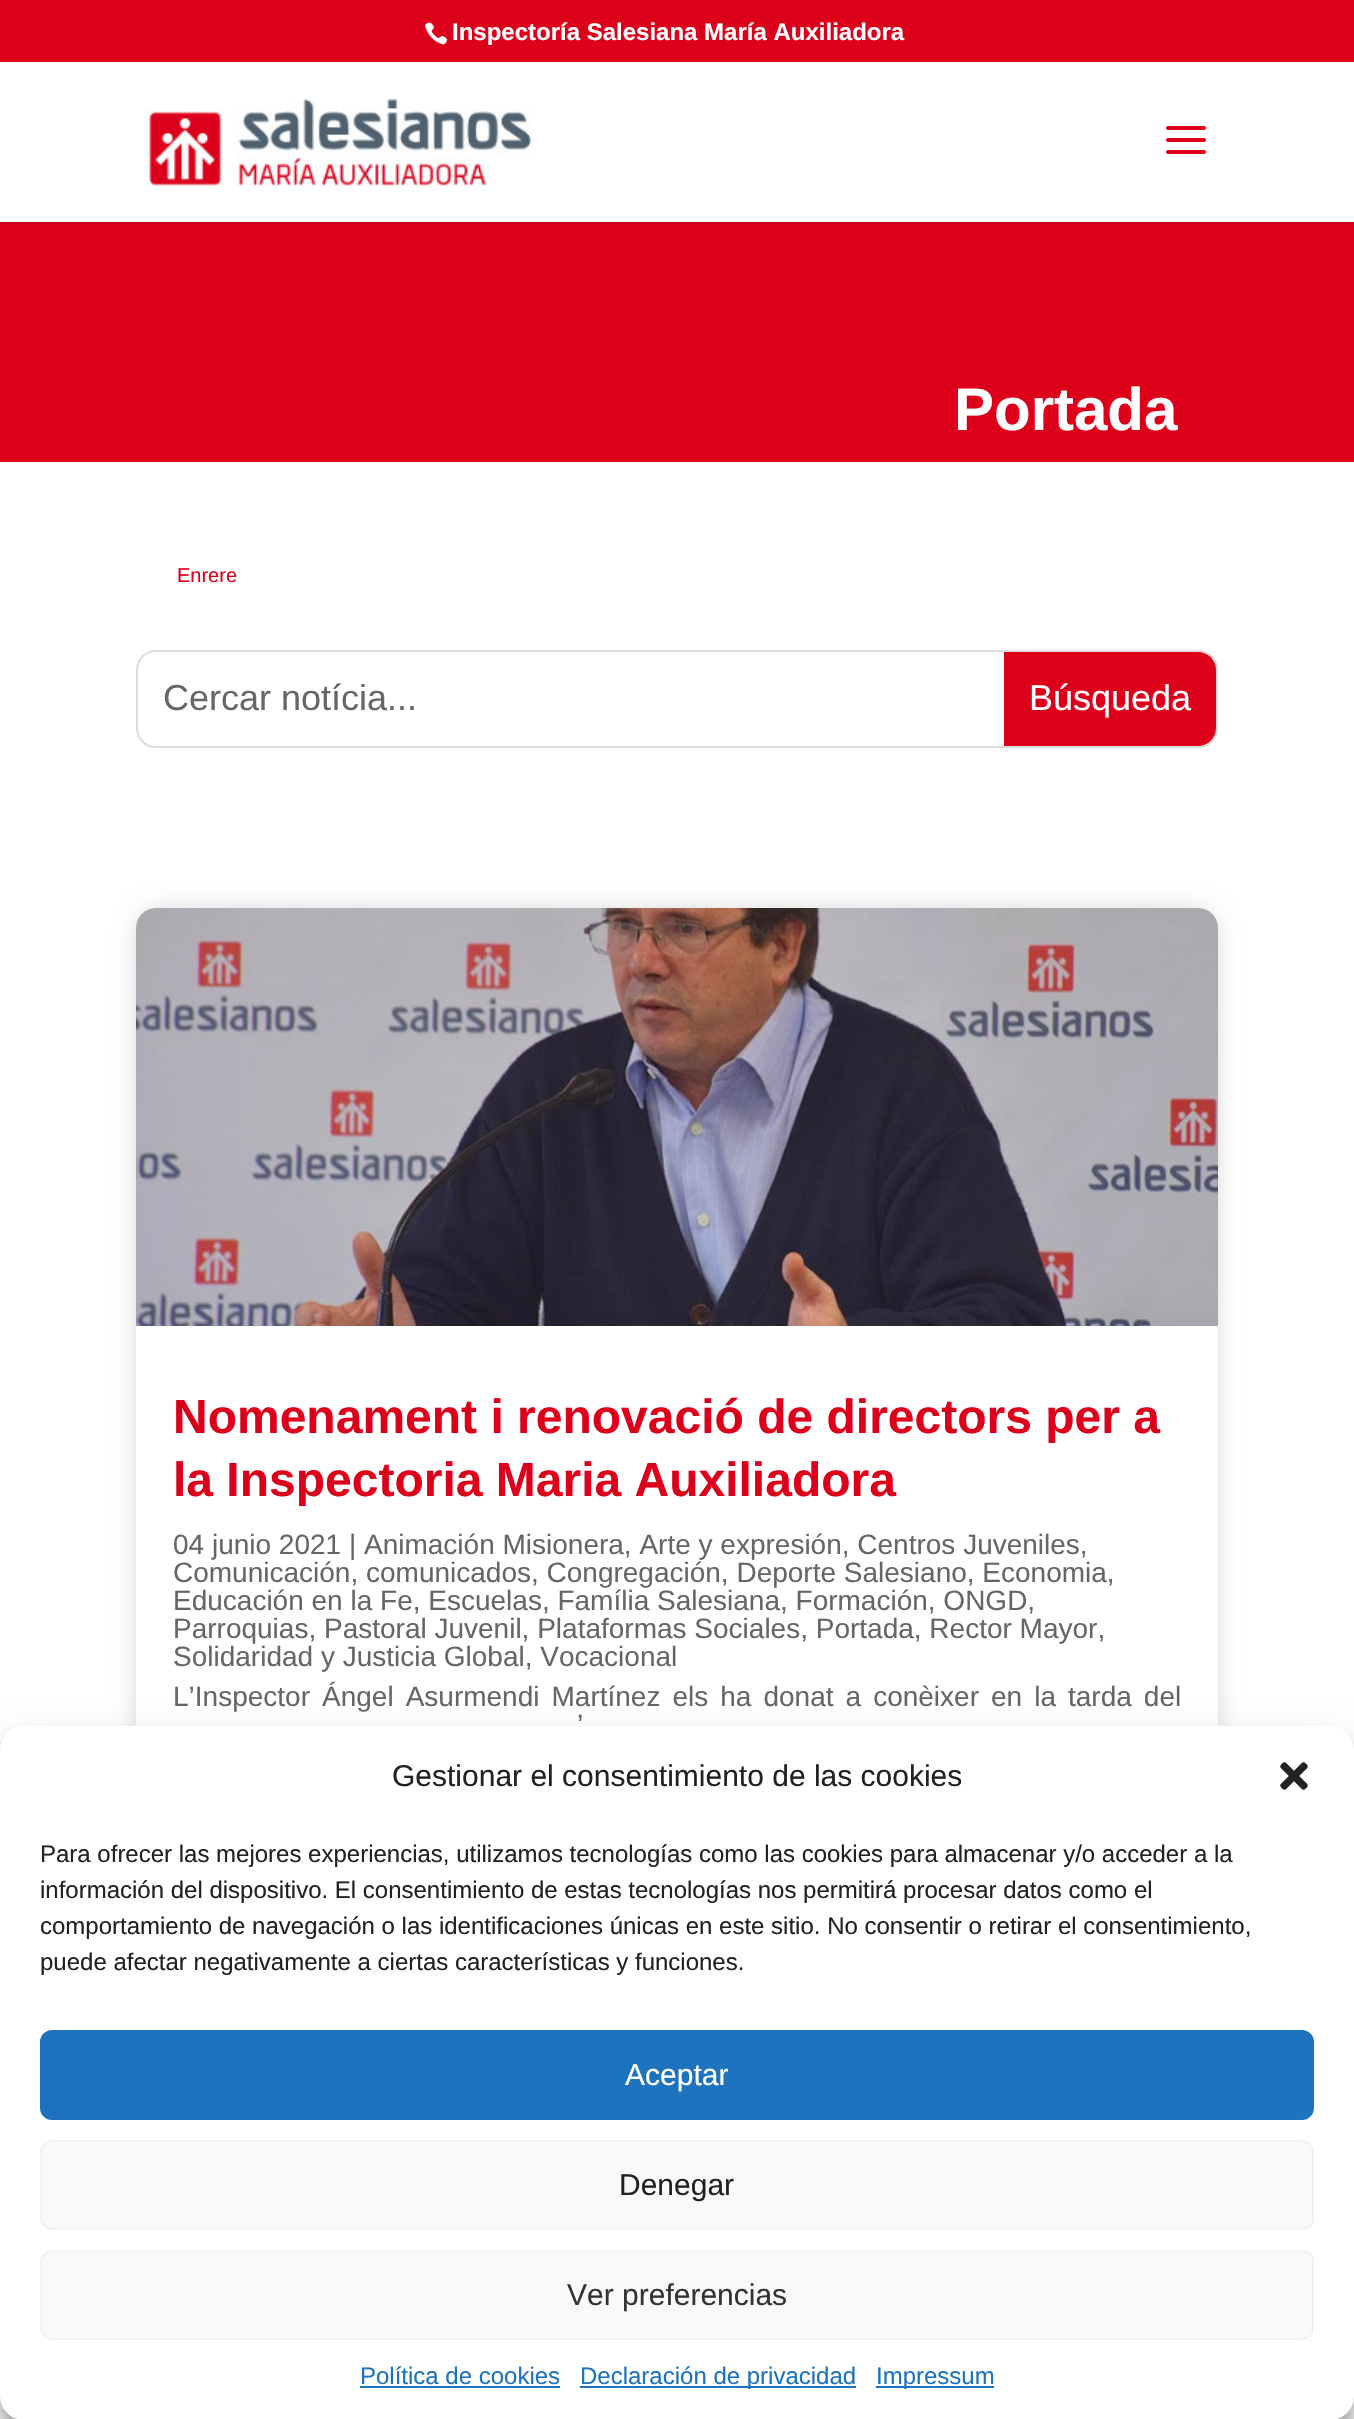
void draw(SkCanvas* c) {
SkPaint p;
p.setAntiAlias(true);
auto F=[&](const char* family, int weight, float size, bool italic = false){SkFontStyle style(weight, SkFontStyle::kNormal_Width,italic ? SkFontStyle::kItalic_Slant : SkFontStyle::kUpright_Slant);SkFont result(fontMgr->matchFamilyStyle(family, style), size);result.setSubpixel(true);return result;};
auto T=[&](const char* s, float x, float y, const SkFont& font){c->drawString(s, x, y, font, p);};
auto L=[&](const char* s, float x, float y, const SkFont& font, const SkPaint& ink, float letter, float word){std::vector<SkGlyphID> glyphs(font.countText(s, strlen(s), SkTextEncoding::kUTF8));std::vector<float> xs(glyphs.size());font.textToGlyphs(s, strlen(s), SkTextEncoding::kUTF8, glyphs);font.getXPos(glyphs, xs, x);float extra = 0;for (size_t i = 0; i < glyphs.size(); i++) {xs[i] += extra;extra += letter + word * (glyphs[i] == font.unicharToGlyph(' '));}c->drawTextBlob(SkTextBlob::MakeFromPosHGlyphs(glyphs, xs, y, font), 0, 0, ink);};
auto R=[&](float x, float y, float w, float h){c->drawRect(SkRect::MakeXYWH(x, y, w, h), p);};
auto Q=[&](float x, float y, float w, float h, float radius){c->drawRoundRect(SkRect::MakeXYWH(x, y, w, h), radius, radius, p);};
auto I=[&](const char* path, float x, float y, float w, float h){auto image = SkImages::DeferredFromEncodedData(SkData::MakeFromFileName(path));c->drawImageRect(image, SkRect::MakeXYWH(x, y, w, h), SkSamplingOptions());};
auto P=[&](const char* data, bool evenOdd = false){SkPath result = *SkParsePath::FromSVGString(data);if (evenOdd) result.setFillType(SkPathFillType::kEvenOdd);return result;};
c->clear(0xffffffff);
p.setColor(0xffdc001b);
R(0,0,1354,62);
I("1.png",425,22,22,23);
auto f1 = F("Liberation Sans",700,24);
p.setColor(0xffffffff);
T("Inspectoría Salesiana María Auxiliadora",452,40,f1);
p.setColor(0xffc60018);
R(0,222,1354,2);
I("2.png",144,98,391,88);
I("3.png",1166,126,40,28);
p.setColor(0xffdc001b);
R(0,224,1354,238);
auto f2 = F("Liberation Sans",700,60);
p.setColor(0xffffffff);
T("Portada",954,430,f2);
auto f3 = F("Liberation Sans",400,20);
p.setColor(0xffdc001b);
T("Enrere",177,582,f3);
p.setStroke(true);
p.setStrokeWidth(2);
p.setColor(0xffdddddd);
c->drawRoundRect(SkRect::MakeXYWH(137,651,1080,96),19,19,p);
auto f4 = F("Liberation Sans",400,36);
p.setStroke(false);
p.setColor(0xff666666);
T("Cercar notícia...",163,710,f4);
p.setColor(0xffdc001b);
c->drawPath(P("M1004 652h194c10 0 18 8 18 18v58c0 10-8 18-18 18h-194z"),p);
p.setColor(0xffffffff);
T("Búsqueda",1029,710,f4);
p.setColor(0x4d000000);
p.setMaskFilter(SkMaskFilter::MakeBlur(kNormal_SkBlurStyle, 15));
c->drawRoundRect(SkRect::MakeXYWH(146,918,1062,848),10,10,p);
p.setMaskFilter(nullptr);
p.setColor(0xffffffff);
Q(136,908,1082,868,20);
I("4.png",136,908,1082,418);
auto f5 = F("Liberation Sans",700,48);
p.setColor(0xffdc001b);
T("Nomenament i renovació de directors per a",173,1433,f5);
T("la Inspectoria Maria Auxiliadora",173,1496,f5);
auto f6 = F("Liberation Sans",400,28);
p.setColor(0xff666666);
T("04 junio 2021 | Animación Misionera, Arte y expresión, Centros Juveniles,",173,1554,f6);
T("Comunicación, comunicados, Congregación, Deporte Salesiano, Economia,",173,1582,f6);
T("Educación en la Fe, Escuelas, Família Salesiana, Formación, ONGD,",173,1610,f6);
T("Parroquias, Pastoral Juvenil, Plataformas Sociales, Portada, Rector Mayor,",173,1638,f6);
T("Solidaridad y Justicia Global, Vocacional",173,1666,f6);
L("L’Inspector Ángel Asurmendi Martínez els ha donat a conèixer en la tarda del",173,1706,f6,p,0,4.25);
T("’",577,1734,f6);
p.setColor(0x3b000000);
p.setMaskFilter(SkMaskFilter::MakeBlur(kNormal_SkBlurStyle, 6));
c->drawRoundRect(SkRect::MakeXYWH(0,1738,1354,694),24,24,p);
p.setMaskFilter(nullptr);
p.setColor(0x30000000);
p.setMaskFilter(SkMaskFilter::MakeBlur(kNormal_SkBlurStyle, 20));
c->drawRoundRect(SkRect::MakeXYWH(0,1746,1354,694),24,24,p);
p.setMaskFilter(nullptr);
p.setColor(0xffffffff);
Q(0,1726,1354,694,24);
auto f7 = F("Liberation Sans",400,30);
p.setColor(0xff222222);
T("Gestionar el consentimiento de las cookies",392,1786,f7);
I("5.png",1280,1762,28,28);
auto f8 = F("Liberation Sans",400,24);
T("Para ofrecer las mejores experiencias, utilizamos tecnologías como las cookies para almacenar y/o acceder a la",40,1862,f8);
T("información del dispositivo. El consentimiento de estas tecnologías nos permitirá procesar datos como el",40,1898,f8);
T("comportamiento de navegación o las identificaciones únicas en este sitio. No consentir o retirar el consentimiento,",40,1934,f8);
T("puede afectar negativamente a ciertas características y funciones.",40,1970,f8);
p.setColor(0xff1e73be);
c->drawRoundRect(SkRect::MakeXYWH(41,2031,1272,88),11,11,p);
p.setStroke(true);
c->drawRoundRect(SkRect::MakeXYWH(41,2031,1272,88),11,11,p);
p.setStroke(false);
p.setColor(0xffffffff);
T("Aceptar",625,2085,f7);
p.setColor(0xfff9f9f9);
c->drawRoundRect(SkRect::MakeXYWH(41,2141,1272,88),11,11,p);
p.setStroke(true);
p.setColor(0xfff2f2f2);
c->drawRoundRect(SkRect::MakeXYWH(41,2141,1272,88),11,11,p);
p.setStroke(false);
p.setColor(0xff222222);
T("Denegar",619,2195,f7);
p.setColor(0xfff9f9f9);
c->drawRoundRect(SkRect::MakeXYWH(41,2251,1272,88),11,11,p);
p.setStroke(true);
p.setColor(0xfff2f2f2);
c->drawRoundRect(SkRect::MakeXYWH(41,2251,1272,88),11,11,p);
p.setStroke(false);
p.setColor(0xff333333);
T("Ver preferencias",567,2305,f7);
p.setColor(0xff1e73be);
T("Política de cookies",360,2384,f8);
R(360,2386,200,2);
R(580,2386,276,2);
T("Declaración de privacidad",580,2384,f8);
R(876,2386,118,2);
T("Impressum",876,2384,f8);
}
